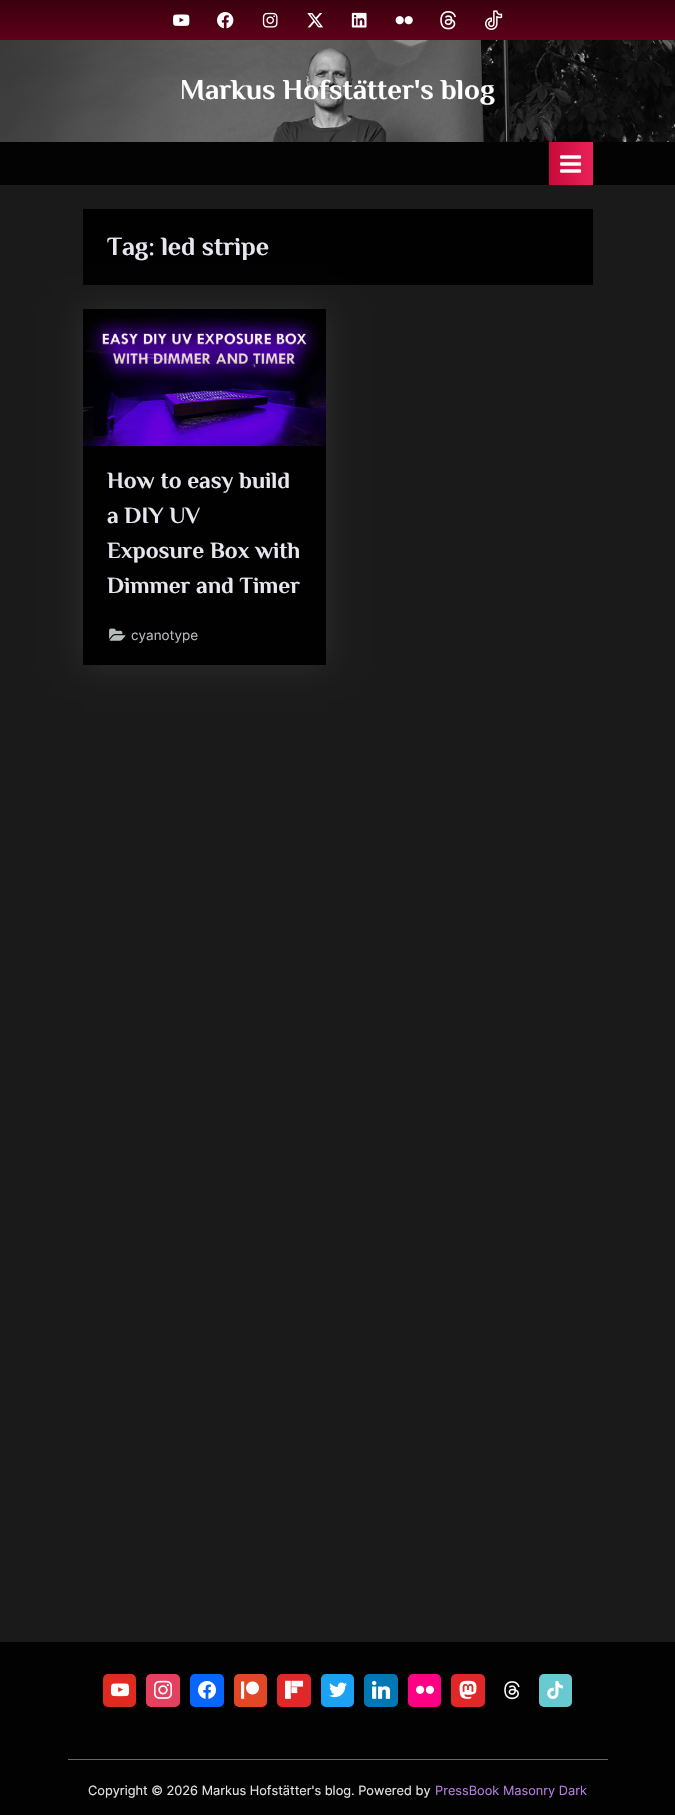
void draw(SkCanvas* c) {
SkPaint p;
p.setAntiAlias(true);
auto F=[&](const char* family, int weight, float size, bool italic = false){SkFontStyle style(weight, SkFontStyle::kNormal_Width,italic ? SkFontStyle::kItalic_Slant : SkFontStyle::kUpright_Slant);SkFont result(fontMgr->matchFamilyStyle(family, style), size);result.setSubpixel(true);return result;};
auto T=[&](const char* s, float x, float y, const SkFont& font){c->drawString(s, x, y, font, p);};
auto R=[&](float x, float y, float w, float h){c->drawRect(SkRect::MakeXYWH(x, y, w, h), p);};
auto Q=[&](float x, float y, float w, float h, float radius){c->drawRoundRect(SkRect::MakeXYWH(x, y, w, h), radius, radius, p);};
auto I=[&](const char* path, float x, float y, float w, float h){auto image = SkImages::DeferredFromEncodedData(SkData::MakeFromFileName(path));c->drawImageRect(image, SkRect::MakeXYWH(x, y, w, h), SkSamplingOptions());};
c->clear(0xff1a1a1a);
{
const SkColor colors[] = {0xff5e0019,0xff3a000e};
const float stops[] = {0,1};
const SkPoint ends[] = {{338,40}, {338,0}};
p.setShader(SkGradientShader::MakeLinear(ends, colors, stops, 2, SkTileMode::kClamp));
p.setAlpha(255);
}
R(0,0,675,40);
I("1.png",173,14,17,12);
I("2.png",217,12,17,17);
I("3.png",262,12,16,16);
I("4.png",307,13,17,15);
I("5.png",351,12,16,16);
I("6.png",395,16,18,9);
I("7.png",440,11,16,19);
I("8.png",485,10,18,20);
I("9.png",0,40,675,102);
auto f1 = F("Philosopher",700,28.75);
p.setShader(nullptr);
p.setColor(0xffffffff);
T("Markus Hofstätter's blog",180,99,f1);
p.setColor(0xff030303);
R(0,142,675,43);
{
const SkColor colors[] = {0xffc90a3d,0xffe82257,0xffc90a3d};
const float stops[] = {0,.51,1};
const SkPoint ends[] = {{471,164}, {551,164}};
p.setShader(SkGradientShader::MakeLinear(ends, colors, stops, 3, SkTileMode::kClamp));
p.setAlpha(255);
}
R(549,142,2,43);
{
const SkColor colors[] = {0xffc90a3d,0xffe82257,0xffc90a3d};
const float stops[] = {0,.51,1};
const SkPoint ends[] = {{551,164}, {631,164}};
p.setShader(SkGradientShader::MakeLinear(ends, colors, stops, 3, SkTileMode::kClamp));
p.setAlpha(255);
}
R(551,142,42,43);
I("10.png",560,155,22,18);
p.setShader(nullptr);
p.setColor(0xff010101);
R(83,209,510,76);
auto f2 = F("Philosopher",700,26);
p.setColor(0xffe7e7ef);
T("Tag: led stripe",107,255,f2);
p.setColor(0x17ffffff);
p.setMaskFilter(SkMaskFilter::MakeBlur(kNormal_SkBlurStyle, 15));
c->drawRect(SkRect::MakeXYWH(83,310,243,356),p);
p.setMaskFilter(nullptr);
p.setColor(0xff010101);
R(83,446,243,219);
I("11.png",83,309,243,137);
auto f3 = F("Philosopher",700,23.25);
p.setColor(0xffe7e7ef);
T("How to easy build",107,488,f3);
T("a DIY UV",107,523,f3);
T("Exposure Box with",107,558,f3);
T("Dimmer and Timer",107,593,f3);
I("12.png",109,628,17,13);
auto f4 = F("Inter",400,13.5);
p.setColor(0xffb8bcbf);
T("cyanotype",131,640,f4);
p.setColor(0xff020202);
R(0,1642,675,173);
p.setColor(0xff666666);
R(68,1759,540,1);
p.setColor(0xffe02a20);
Q(103,1674,33,33,5);
I("13.png",111,1683,19,14);
p.setColor(0xffe4405f);
Q(146,1674,34,33,5);
I("14.png",154,1680,18,19);
p.setColor(0xff0866ff);
Q(190,1674,34,33,5);
I("15.png",198,1681,18,18);
p.setColor(0xffe44727);
Q(234,1674,33,33,5);
I("16.png",241,1681,18,18);
p.setColor(0xffe12828);
Q(277,1674,34,33,5);
I("17.png",285,1680,19,19);
p.setColor(0xff1da1f2);
Q(321,1674,33,33,5);
I("18.png",329,1682,18,16);
p.setColor(0xff0077b5);
Q(364,1674,34,33,5);
I("19.png",372,1680,19,19);
p.setColor(0xffff0084);
Q(408,1674,33,33,5);
I("20.png",416,1685,18,9);
p.setColor(0xffe12828);
Q(451,1674,34,33,5);
I("21.png",459,1680,18,19);
I("22.png",504,1681,16,19);
p.setColor(0xff69c9d0);
Q(539,1674,33,33,5);
I("23.png",547,1681,16,18);
auto f5 = F("Inter",400,12.8);
p.setColor(0xffe1e1e1);
T("Copyright © 2026 Markus Hofstätter's blog. Powered by",88,1795,f5);
p.setColor(0xffb57de3);
T("PressBook Masonry Dark",435,1795,f5);
}
